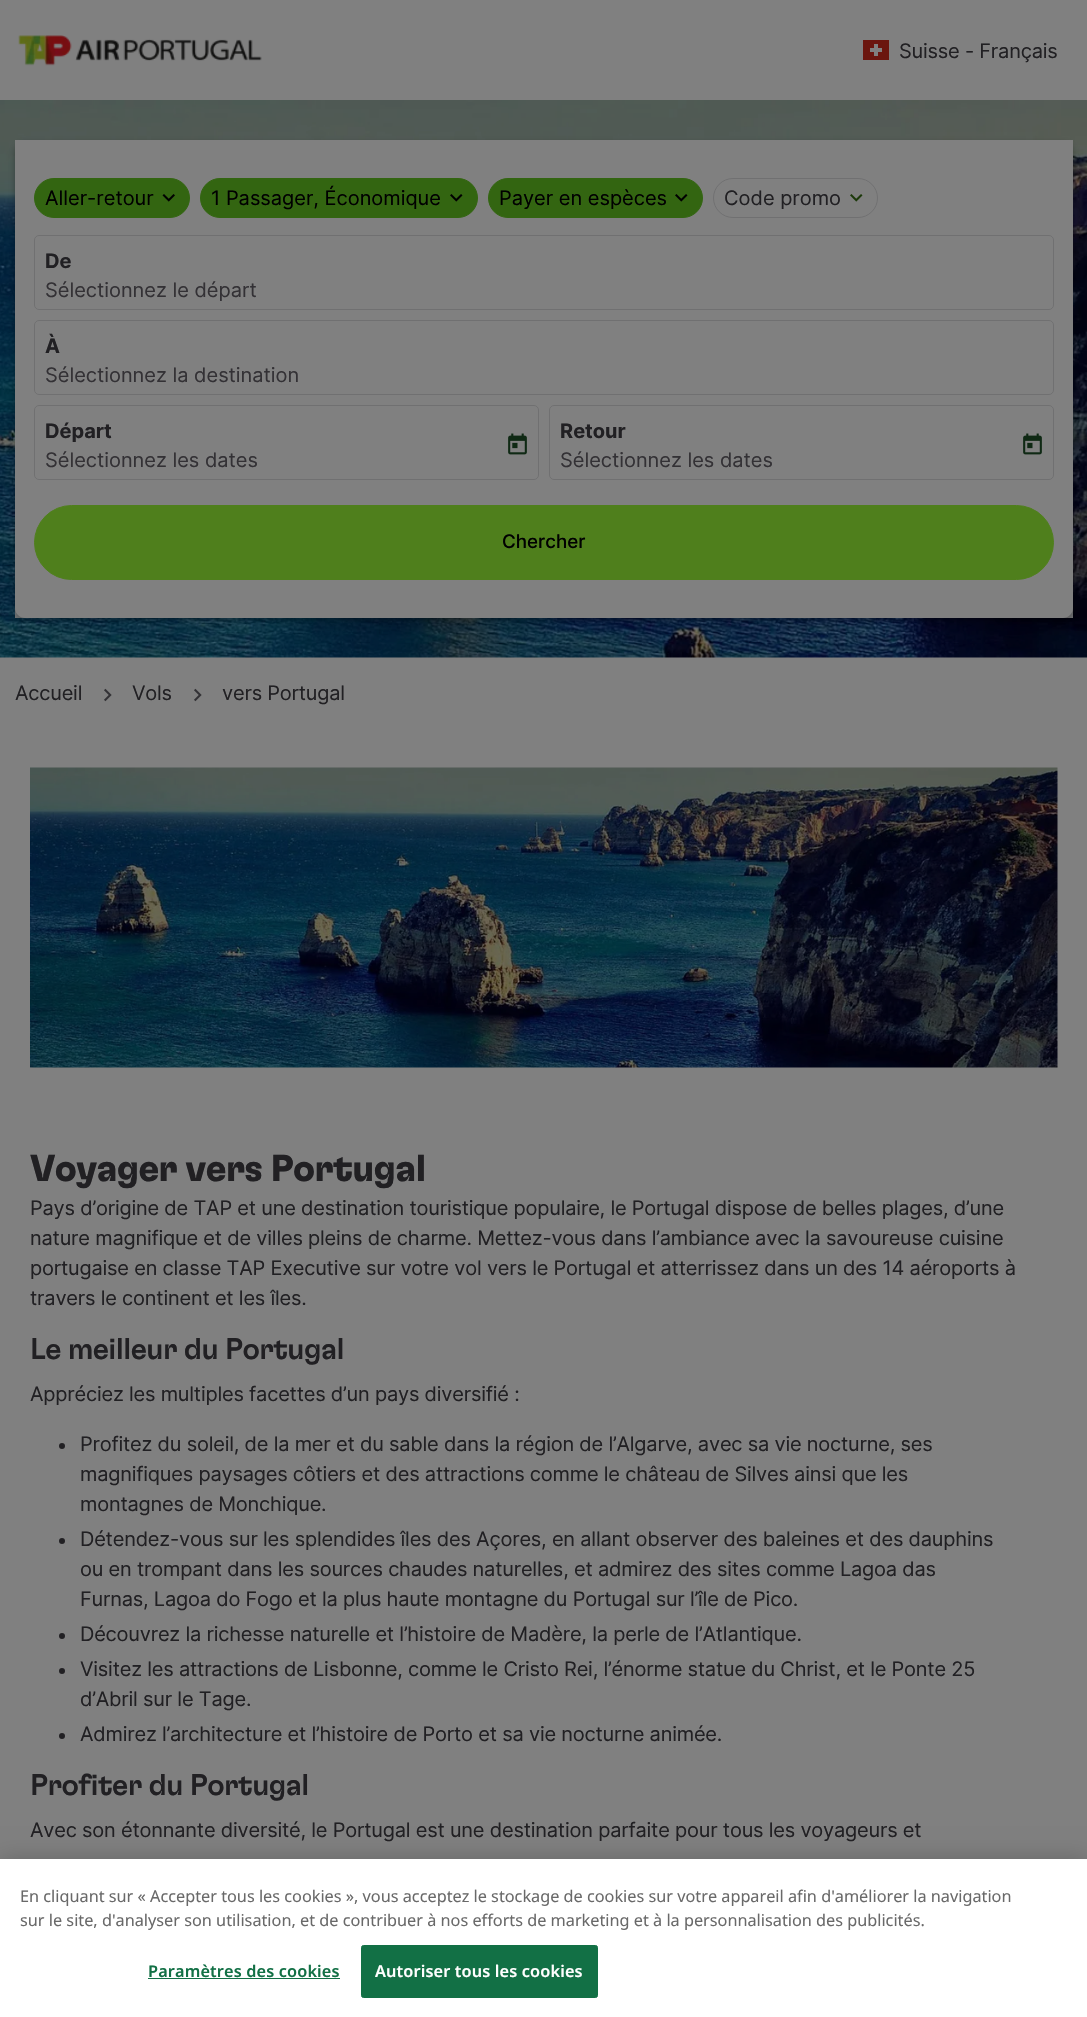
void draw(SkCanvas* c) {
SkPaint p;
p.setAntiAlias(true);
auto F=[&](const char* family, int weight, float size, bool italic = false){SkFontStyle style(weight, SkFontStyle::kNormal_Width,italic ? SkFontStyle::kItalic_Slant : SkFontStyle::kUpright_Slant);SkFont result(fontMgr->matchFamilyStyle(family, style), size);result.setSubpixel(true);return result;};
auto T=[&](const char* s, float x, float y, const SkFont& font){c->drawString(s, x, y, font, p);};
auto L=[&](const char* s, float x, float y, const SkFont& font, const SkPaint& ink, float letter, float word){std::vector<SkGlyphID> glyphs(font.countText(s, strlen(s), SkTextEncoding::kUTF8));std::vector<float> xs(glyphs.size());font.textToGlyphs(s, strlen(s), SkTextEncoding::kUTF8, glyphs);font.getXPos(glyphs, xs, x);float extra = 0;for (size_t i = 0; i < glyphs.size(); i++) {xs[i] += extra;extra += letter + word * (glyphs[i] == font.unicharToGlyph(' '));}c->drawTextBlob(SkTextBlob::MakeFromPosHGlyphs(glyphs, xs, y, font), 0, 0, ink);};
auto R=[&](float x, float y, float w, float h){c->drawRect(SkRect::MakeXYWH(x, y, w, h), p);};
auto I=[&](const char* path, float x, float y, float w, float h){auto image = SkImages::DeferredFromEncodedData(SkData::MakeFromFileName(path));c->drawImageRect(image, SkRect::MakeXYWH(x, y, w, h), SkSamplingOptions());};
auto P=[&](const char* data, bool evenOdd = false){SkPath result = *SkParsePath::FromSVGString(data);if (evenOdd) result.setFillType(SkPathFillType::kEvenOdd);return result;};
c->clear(0xff808080);
I("1.png",18,35,244,31);
p.setColor(0xff6b160f);
R(863,40,26,20);
p.setColor(0xff808080);
R(870,48,12,4);
R(874,44,4,12);
auto f1 = F("Inter",400,20);
p.setColor(0xff212023);
L("Suisse - Français",899,58,f1,p,-.2,0);
I("2.png",0,100,1087,558);
p.setColor(0xe6808080);
R(15,608,1058,10);
p.setColor(0x4d000000);
p.setMaskFilter(SkMaskFilter::MakeBlur(kNormal_SkBlurStyle, 3));
c->drawRoundRect(SkRect::MakeXYWH(15,143,1058,477),10,10,p);
p.setMaskFilter(nullptr);
p.setColor(0xff808080);
c->drawPath(P("M15 140h1058v468c0 5.5-4.5 10-10 10h-1038c-5.5 0-10-4.5-10-10z"),p);
p.setColor(0xff336511);
c->drawRoundRect(SkRect::MakeXYWH(34.5,178.5,155,39),19.5,19.5,p);
p.setStroke(true);
p.setStrokeWidth(1);
c->drawRoundRect(SkRect::MakeXYWH(34.5,178.5,155,39),19.5,19.5,p);
p.setStroke(false);
p.setColor(0xff000000);
T("Aller-retour",45,205,f1);
I("3.png",162,194,13,8);
p.setColor(0xff336511);
c->drawRoundRect(SkRect::MakeXYWH(200.5,178.5,277,39),19.5,19.5,p);
p.setStroke(true);
c->drawRoundRect(SkRect::MakeXYWH(200.5,178.5,277,39),19.5,19.5,p);
p.setStroke(false);
p.setColor(0xff000000);
T("1 Passager, Économique",211,205,f1);
I("4.png",450,194,13,8);
p.setColor(0xff336511);
c->drawRoundRect(SkRect::MakeXYWH(488.5,178.5,214,39),19.5,19.5,p);
p.setStroke(true);
c->drawRoundRect(SkRect::MakeXYWH(488.5,178.5,214,39),19.5,19.5,p);
p.setStroke(false);
p.setColor(0xff000000);
T("Payer en espèces",499,205,f1);
I("4.png",675,194,13,8);
p.setStroke(true);
p.setColor(0xff707071);
c->drawRoundRect(SkRect::MakeXYWH(713.5,178.5,164,39),19.5,19.5,p);
p.setStroke(false);
p.setColor(0xff212023);
T("Code promo",724,205,f1);
I("5.png",850,194,13,8);
p.setStroke(true);
p.setColor(0xff707071);
c->drawRoundRect(SkRect::MakeXYWH(34.5,235.5,1019,74),4.5,4.5,p);
auto f2 = F("Inter",700,20);
p.setStroke(false);
p.setColor(0xff212023);
T("De",45,268,f2);
p.setColor(0xff333135);
T("Sélectionnez le départ",45,297,f1);
p.setStroke(true);
p.setColor(0xff707071);
c->drawRoundRect(SkRect::MakeXYWH(34.5,320.5,1019,74),4.5,4.5,p);
p.setStroke(false);
p.setColor(0xff212023);
T("À",45,353,f2);
p.setColor(0xff333135);
T("Sélectionnez la destination",45,382,f1);
p.setStroke(true);
p.setColor(0xff707071);
c->drawRoundRect(SkRect::MakeXYWH(34.5,405.5,504,74),4.5,4.5,p);
p.setStroke(false);
p.setColor(0xff212023);
T("Départ",45,438,f2);
p.setColor(0xff333135);
T("Sélectionnez les dates",45,467,f1);
I("6.png",508,433,19,22);
p.setStroke(true);
p.setColor(0xff707071);
c->drawRoundRect(SkRect::MakeXYWH(549.5,405.5,504,74),4.5,4.5,p);
p.setStroke(false);
p.setColor(0xff212023);
T("Retour",560,438,f2);
p.setColor(0xff333135);
T("Sélectionnez les dates",560,467,f1);
I("6.png",1023,433,19,22);
p.setColor(0xff4f7f1c);
c->drawRoundRect(SkRect::MakeXYWH(34.5,505.5,1019,74),37,37,p);
p.setStroke(true);
c->drawRoundRect(SkRect::MakeXYWH(34.5,505.5,1019,74),37,37,p);
auto f3 = F("Inter",500,18.75);
p.setStroke(false);
p.setColor(0xff000000);
T("Chercher",502,548,f3);
p.setColor(0xff212023);
L("Accueil",15,700,f1,p,-.2,0);
I("7.png",104,688,8,14);
L("Vols",132,700,f1,p,-.2,0);
I("7.png",194,688,8,14);
L("vers Portugal",222,700,f1,p,-.2,0);
I("8.png",30,767,1028,301);
auto f4 = F("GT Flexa",700,37.5);
L("Voyager vers Portugal",30,1181,f4,p,-.75,0);
L("Pays d’origine de TAP et une destination touristique populaire, le Portugal dispose de belles plages, d’une",30,1215,f1,p,-.2,0);
L("nature magnifique et de villes pleins de charme. Mettez-vous dans l’ambiance avec la savoureuse cuisine",30,1245,f1,p,-.2,0);
L("portugaise en classe TAP Executive sur votre vol vers le Portugal et atterrissez dans un des 14 aéroports à",30,1275,f1,p,-.2,0);
L("travers le continent et les îles.",30,1305,f1,p,-.2,0);
auto f5 = F("GT Flexa",500,30);
L("Le meilleur du Portugal",30,1359,f5,p,-.6,0);
L("Appréciez les multiples facettes d’un pays diversifié :",30,1401,f1,p,-.2,0);
c->drawCircle(62,1446,3,p);
L("Profitez du soleil, de la mer et du sable dans la région de l’Algarve, avec sa vie nocturne, ses",80,1451,f1,p,-.2,0);
L("magnifiques paysages côtiers et des attractions comme le château de Silves ainsi que les",80,1481,f1,p,-.2,0);
L("montagnes de Monchique.",80,1511,f1,p,-.2,0);
c->drawCircle(62,1541,3,p);
L("Détendez-vous sur les splendides îles des Açores, en allant observer des baleines et des dauphins",80,1546,f1,p,-.2,0);
L("ou en trompant dans les sources chaudes naturelles, et admirez des sites comme Lagoa das",80,1576,f1,p,-.2,0);
L("Furnas, Lagoa do Fogo et la plus haute montagne du Portugal sur l’île de Pico.",80,1606,f1,p,-.2,0);
c->drawCircle(62,1636,3,p);
L("Découvrez la richesse naturelle et l’histoire de Madère, la perle de l’Atlantique.",80,1641,f1,p,-.2,0);
c->drawCircle(62,1671,3,p);
L("Visitez les attractions de Lisbonne, comme le Cristo Rei, l’énorme statue du Christ, et le Ponte 25",80,1676,f1,p,-.2,0);
L("d’Abril sur le Tage.",80,1706,f1,p,-.2,0);
c->drawCircle(62,1736,3,p);
L("Admirez l’architecture et l’histoire de Porto et sa vie nocturne animée.",80,1741,f1,p,-.2,0);
L("Profiter du Portugal",30,1795,f5,p,-.6,0);
L("Avec son étonnante diversité, le Portugal est une destination parfaite pour tous les voyageurs et",30,1837,f1,p,-.2,0);
p.setColor(0x33000000);
p.setMaskFilter(SkMaskFilter::MakeBlur(kNormal_SkBlurStyle, 11));
c->drawRect(SkRect::MakeXYWH(0,1859,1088,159),p);
p.setMaskFilter(nullptr);
p.setColor(0xffffffff);
R(0,1859,1087,158);
auto f6 = F("Noto Sans",400,16.25);
p.setColor(0xff696969);
T("En cliquant sur « Accepter tous les cookies », vous acceptez le stockage de cookies sur votre appareil afin d'améliorer la navigation",20,1902,f6);
T("sur le site, d'analyser son utilisation, et de contribuer à nos efforts de marketing et à la personnalisation des publicités.",20,1926,f6);
auto f7 = F("Noto Sans",600,16.25);
p.setColor(0xff127045);
L("Paramètres des cookies",148,1977,f7,p,.15,0);
R(148,1978,192,1);
c->drawRoundRect(SkRect::MakeXYWH(361.5,1945.5,236,52),2,2,p);
p.setStroke(true);
c->drawRoundRect(SkRect::MakeXYWH(361.5,1945.5,236,52),2,2,p);
p.setStroke(false);
p.setColor(0xffffffff);
L("Autoriser tous les cookies",375,1977,f7,p,.15,0);
}
